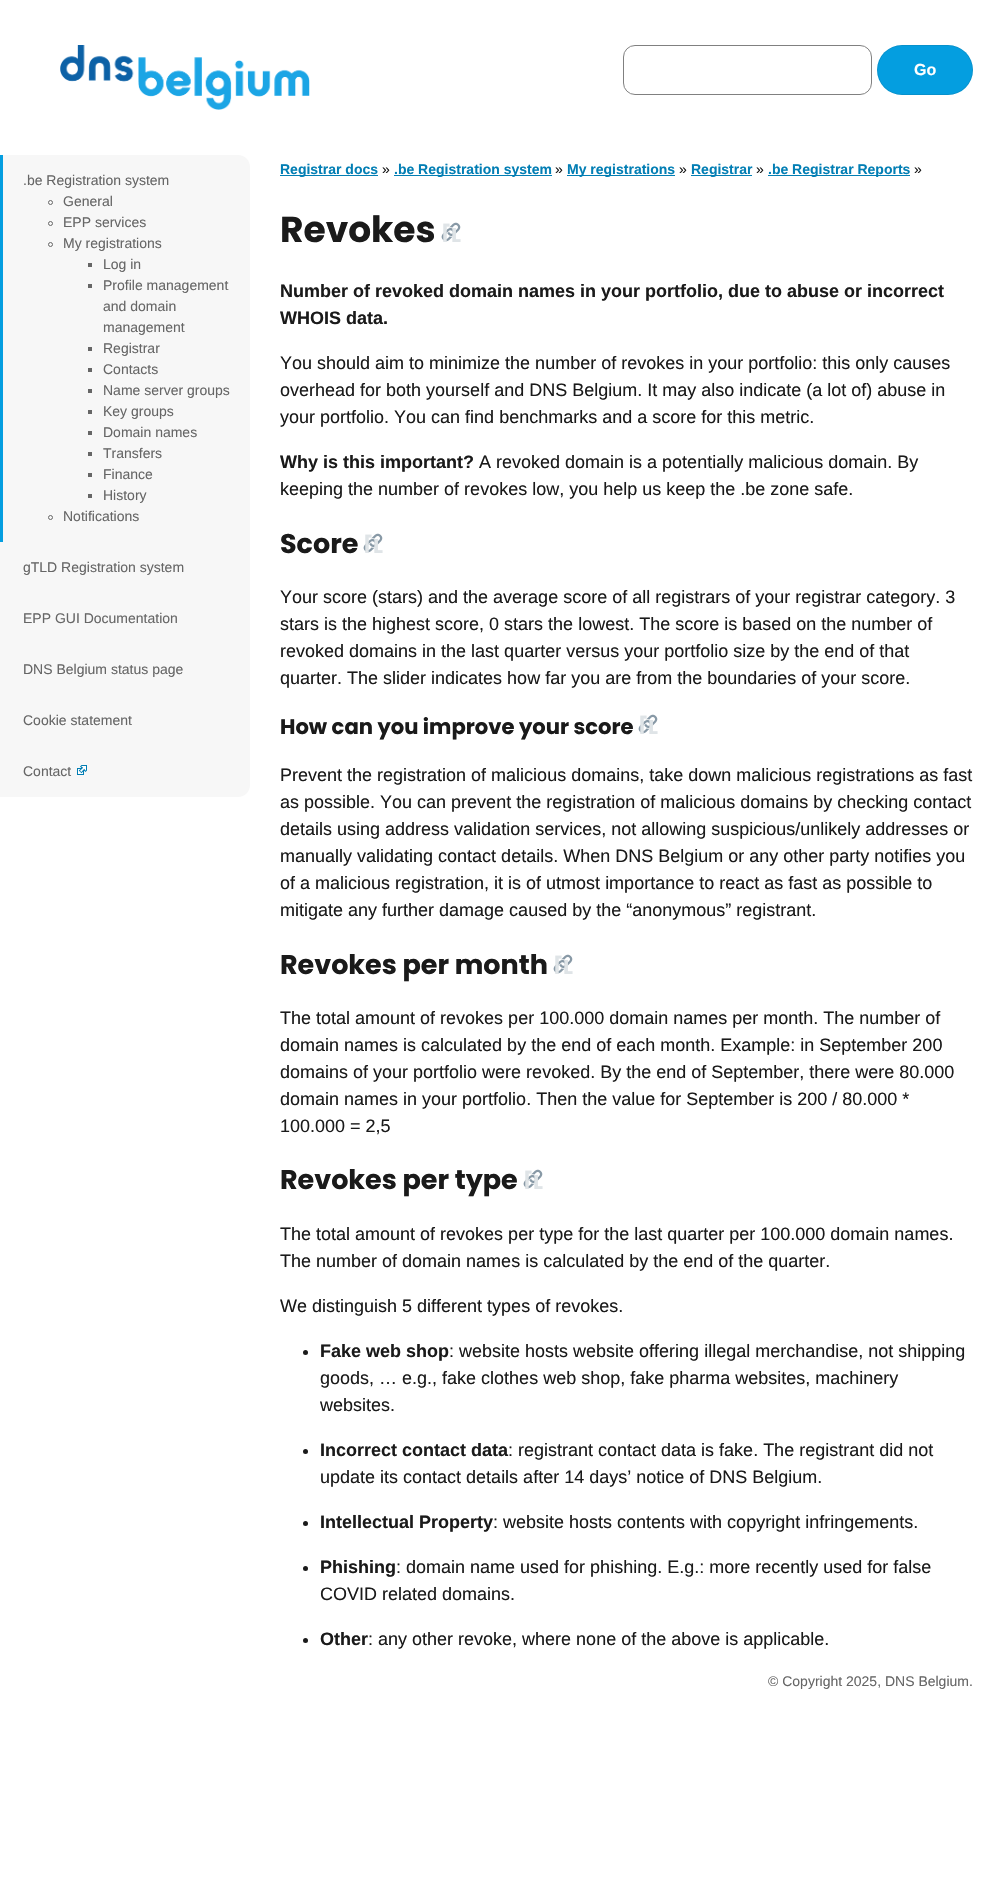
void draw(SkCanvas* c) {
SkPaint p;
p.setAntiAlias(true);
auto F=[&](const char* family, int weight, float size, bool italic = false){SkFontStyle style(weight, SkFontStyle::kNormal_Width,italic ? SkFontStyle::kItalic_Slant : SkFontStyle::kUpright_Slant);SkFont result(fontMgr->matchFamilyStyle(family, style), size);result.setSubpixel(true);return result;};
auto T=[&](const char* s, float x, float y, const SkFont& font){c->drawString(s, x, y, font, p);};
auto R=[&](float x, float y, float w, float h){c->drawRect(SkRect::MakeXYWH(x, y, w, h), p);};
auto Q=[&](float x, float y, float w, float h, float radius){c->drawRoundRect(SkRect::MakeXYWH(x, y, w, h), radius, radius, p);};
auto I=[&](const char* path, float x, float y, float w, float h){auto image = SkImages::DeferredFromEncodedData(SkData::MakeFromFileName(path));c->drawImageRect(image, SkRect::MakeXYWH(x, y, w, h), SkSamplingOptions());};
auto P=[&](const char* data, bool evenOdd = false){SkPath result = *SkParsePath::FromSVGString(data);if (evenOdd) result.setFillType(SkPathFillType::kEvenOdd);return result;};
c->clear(0xffffffff);
I("1.png",60,45,250,65);
p.setStroke(true);
p.setStrokeWidth(1);
p.setColor(0xff808080);
c->drawRoundRect(SkRect::MakeXYWH(623.5,45.5,248,49),11.5,11.5,p);
p.setStroke(false);
p.setColor(0xff049ee0);
Q(877,45,96,50,25);
p.setStroke(true);
p.setColor(0x1a1a1a1a);
c->drawRoundRect(SkRect::MakeXYWH(877.5,45.5,95,49),24.5,24.5,p);
auto f1 = F("Liberation Sans",700,16);
p.setStroke(false);
p.setColor(0xffffffff);
T("Go",914,75,f1);
p.setColor(0xfff7f7f7);
c->drawPath(P("M0 155h238c6.5 0 12 5.5 12 12v618c0 6.5-5.5 12-12 12h-238z"),p);
p.setColor(0xff049ee0);
R(0,155,3,387);
auto f2 = F("Liberation Sans",400,14);
p.setColor(0xff666666);
T(".be Registration system",23,185,f2);
p.setStroke(true);
c->drawCircle(50.5,202.5,2,p);
p.setStroke(false);
T("General",63,206,f2);
p.setStroke(true);
c->drawCircle(50.5,223.5,2,p);
p.setStroke(false);
T("EPP services",63,227,f2);
p.setStroke(true);
c->drawCircle(50.5,244.5,2,p);
p.setStroke(false);
T("My registrations",63,248,f2);
R(88,263,4,4);
T("Log in",103,269,f2);
R(88,284,4,4);
T("Profile management",103,290,f2);
T("and domain",103,311,f2);
T("management",103,332,f2);
R(88,347,4,4);
T("Registrar",103,353,f2);
R(88,368,4,4);
T("Contacts",103,374,f2);
R(88,389,4,4);
T("Name server groups",103,395,f2);
R(88,410,4,4);
T("Key groups",103,416,f2);
R(88,431,4,4);
T("Domain names",103,437,f2);
R(88,452,4,4);
T("Transfers",103,458,f2);
R(88,473,4,4);
T("Finance",103,479,f2);
R(88,494,4,4);
T("History",103,500,f2);
p.setStroke(true);
c->drawCircle(50.5,517.5,2,p);
p.setStroke(false);
T("Notifications",63,521,f2);
T("gTLD Registration system",23,572,f2);
T("EPP GUI Documentation",23,623,f2);
T("DNS Belgium status page",23,674,f2);
T("Cookie statement",23,725,f2);
T("Contact",23,776,f2);
I("2.png",77,765,10,10);
p.setColor(0xff027eb4);
R(280,175,98,1);
auto f3 = F("Liberation Sans",700,14);
T("Registrar docs",280,174,f3);
p.setColor(0xff1a1a1a);
T("»",382,174,f2);
p.setColor(0xff027eb4);
R(394,175,158,1);
T(".be Registration system",394,174,f3);
p.setColor(0xff1a1a1a);
T("»",555,174,f2);
p.setColor(0xff027eb4);
R(567,175,108,1);
T("My registrations",567,174,f3);
p.setColor(0xff1a1a1a);
T("»",679,174,f2);
p.setColor(0xff027eb4);
R(691,175,61,1);
T("Registrar",691,174,f3);
p.setColor(0xff1a1a1a);
T("»",756,174,f2);
p.setColor(0xff027eb4);
R(768,175,142,1);
T(".be Registrar Reports",768,174,f3);
p.setColor(0xff1a1a1a);
T("»",914,174,f2);
auto f4 = F("Poppins",700,36);
T("Revokes",280,242,f4);
I("3.png",441,222,20,20);
c->save();
c->clipRect(SkRect::MakeXYWH(441,222,20,20));
auto f5 = F("Poppins",700,20);
p.setColor(0xffdfe4e7);
T("[L",441,242,f5);
c->restore();
auto f6 = F("Liberation Sans",700,18);
p.setColor(0xff1a1a1a);
T("Number of revoked domain names in your portfolio, due to abuse or incorrect",280,297,f6);
T("WHOIS data.",280,324,f6);
auto f7 = F("Liberation Sans",400,18);
T("You should aim to minimize the number of revokes in your portfolio: this only causes",280,369,f7);
T("overhead for both yourself and DNS Belgium. It may also indicate (a lot of) abuse in",280,396,f7);
T("your portfolio. You can find benchmarks and a score for this metric.",280,423,f7);
T("Why is this important?",280,468,f6);
T("A revoked domain is a potentially malicious domain. By",479,468,f7);
T("keeping the number of revokes low, you help us keep the .be zone safe.",280,495,f7);
auto f8 = F("Poppins",700,27);
T("Score",280,553,f8);
I("3.png",363,533,20,20);
c->save();
c->clipRect(SkRect::MakeXYWH(363,533,20,20));
p.setColor(0xffdfe4e7);
T("[L",363,553,f5);
c->restore();
p.setColor(0xff1a1a1a);
T("Your score (stars) and the average score of all registrars of your registrar category. 3",280,603,f7);
T("stars is the highest score, 0 stars the lowest. The score is based on the number of",280,630,f7);
T("revoked domains in the last quarter versus your portfolio size by the end of that",280,657,f7);
T("quarter. The slider indicates how far you are from the boundaries of your score.",280,684,f7);
auto f9 = F("Poppins",700,21.1);
T("How can you improve your score",280,734,f9);
I("3.png",638,714,20,20);
c->save();
c->clipRect(SkRect::MakeXYWH(638,714,20,20));
p.setColor(0xffdfe4e7);
T("[L",638,734,f5);
c->restore();
p.setColor(0xff1a1a1a);
T("Prevent the registration of malicious domains, take down malicious registrations as fast",280,781,f7);
T("as possible. You can prevent the registration of malicious domains by checking contact",280,808,f7);
T("details using address validation services, not allowing suspicious/unlikely addresses or",280,835,f7);
T("manually validating contact details. When DNS Belgium or any other party notifies you",280,862,f7);
T("of a malicious registration, it is of utmost importance to react as fast as possible to",280,889,f7);
T("mitigate any further damage caused by the “anonymous” registrant.",280,916,f7);
T("Revokes per month",280,974,f8);
I("3.png",553,954,20,20);
c->save();
c->clipRect(SkRect::MakeXYWH(553,954,20,20));
p.setColor(0xffdfe4e7);
T("[L",553,974,f5);
c->restore();
p.setColor(0xff1a1a1a);
T("The total amount of revokes per 100.000 domain names per month. The number of",280,1024,f7);
T("domain names is calculated by the end of each month. Example: in September 200",280,1051,f7);
T("domains of your portfolio were revoked. By the end of September, there were 80.000",280,1078,f7);
T("domain names in your portfolio. Then the value for September is 200 / 80.000 *",280,1105,f7);
T("100.000 = 2,5",280,1132,f7);
T("Revokes per type",280,1189,f8);
I("3.png",523,1169,20,20);
c->save();
c->clipRect(SkRect::MakeXYWH(523,1169,20,20));
p.setColor(0xffdfe4e7);
T("[L",523,1189,f5);
c->restore();
p.setColor(0xff1a1a1a);
T("The total amount of revokes per type for the last quarter per 100.000 domain names.",280,1240,f7);
T("The number of domain names is calculated by the end of the quarter.",280,1267,f7);
T("We distinguish 5 different types of revokes.",280,1312,f7);
c->drawCircle(305.5,1352.5,2.5,p);
T("Fake web shop",320,1357,f6);
T(": website hosts website offering illegal merchandise, not shipping",449,1357,f7);
T("goods, … e.g., fake clothes web shop, fake pharma websites, machinery",320,1384,f7);
T("websites.",320,1411,f7);
c->drawCircle(305.5,1451.5,2.5,p);
T("Incorrect contact data",320,1456,f6);
T(": registrant contact data is fake. The registrant did not",508,1456,f7);
T("update its contact details after 14 days’ notice of DNS Belgium.",320,1483,f7);
c->drawCircle(305.5,1523.5,2.5,p);
T("Intellectual Property",320,1528,f6);
T(": website hosts contents with copyright infringements.",493,1528,f7);
c->drawCircle(305.5,1568.5,2.5,p);
T("Phishing",320,1573,f6);
T(": domain name used for phishing. E.g.: more recently used for false",396,1573,f7);
T("COVID related domains.",320,1600,f7);
c->drawCircle(305.5,1640.5,2.5,p);
T("Other",320,1645,f6);
T(": any other revoke, where none of the above is applicable.",368,1645,f7);
p.setColor(0xff666666);
T("© Copyright 2025, DNS Belgium.",768,1686,f2);
}
